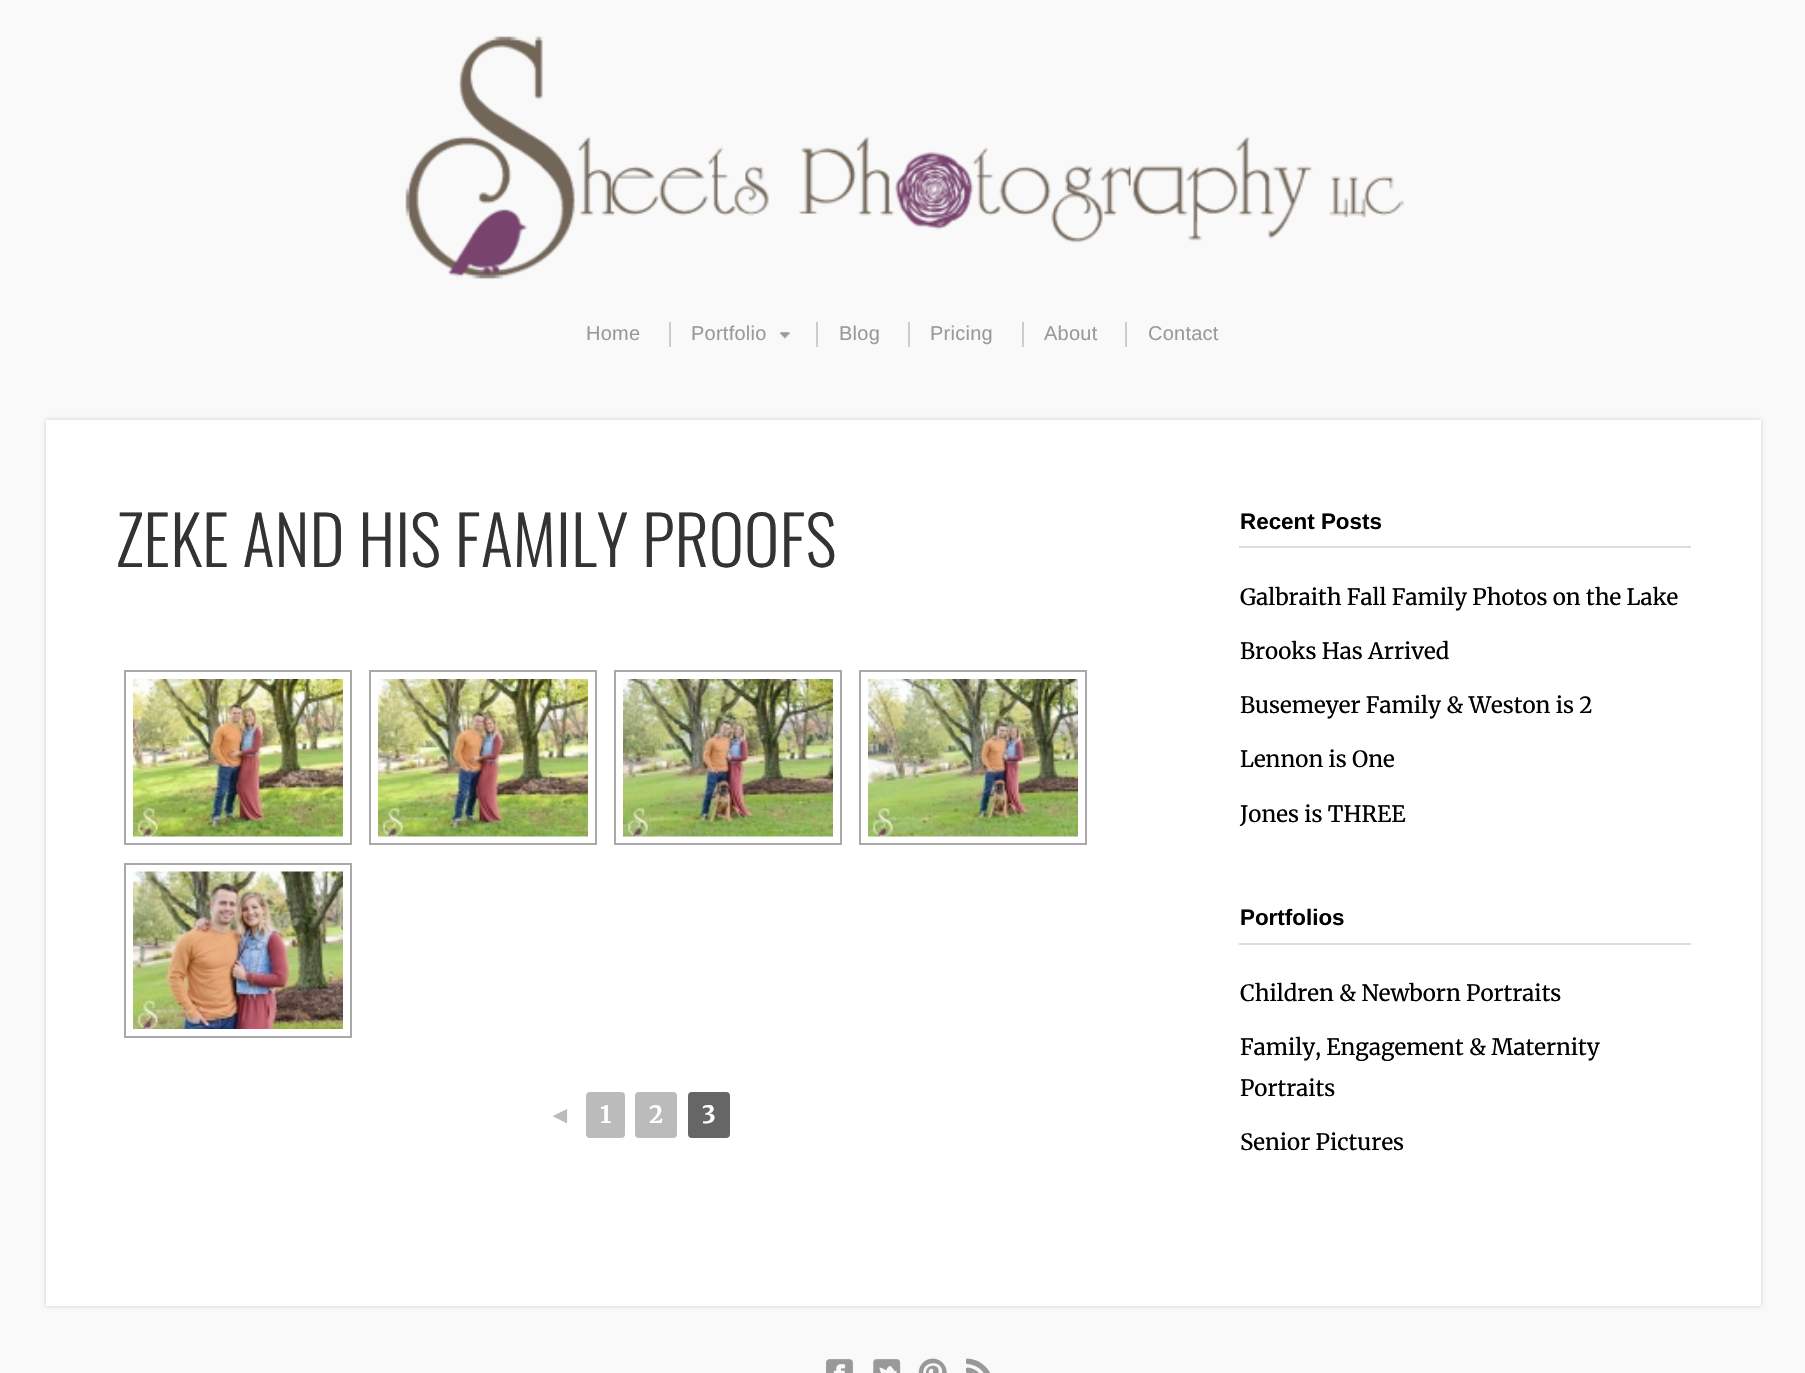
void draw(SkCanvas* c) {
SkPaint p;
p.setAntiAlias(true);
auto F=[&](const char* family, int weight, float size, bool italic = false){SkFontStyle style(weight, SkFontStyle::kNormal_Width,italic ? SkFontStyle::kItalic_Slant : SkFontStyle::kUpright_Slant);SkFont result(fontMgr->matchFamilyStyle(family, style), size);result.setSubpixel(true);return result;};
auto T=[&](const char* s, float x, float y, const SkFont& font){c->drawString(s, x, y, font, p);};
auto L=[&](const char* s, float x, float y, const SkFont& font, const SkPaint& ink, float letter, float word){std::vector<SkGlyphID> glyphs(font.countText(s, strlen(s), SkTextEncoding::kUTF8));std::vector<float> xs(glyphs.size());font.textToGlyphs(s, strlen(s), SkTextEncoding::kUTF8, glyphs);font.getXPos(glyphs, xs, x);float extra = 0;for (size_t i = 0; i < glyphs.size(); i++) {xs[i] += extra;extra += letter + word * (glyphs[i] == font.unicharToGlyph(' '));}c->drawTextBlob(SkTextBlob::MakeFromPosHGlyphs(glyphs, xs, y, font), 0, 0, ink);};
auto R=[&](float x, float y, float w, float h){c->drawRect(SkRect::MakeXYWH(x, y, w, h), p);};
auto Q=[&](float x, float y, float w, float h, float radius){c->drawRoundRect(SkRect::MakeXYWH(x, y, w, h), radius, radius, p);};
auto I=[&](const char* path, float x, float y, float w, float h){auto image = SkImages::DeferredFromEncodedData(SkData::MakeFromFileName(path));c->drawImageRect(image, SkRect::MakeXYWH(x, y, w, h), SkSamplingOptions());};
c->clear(0xfff9f9f9);
I("1.png",405,36,999,243);
auto f1 = F("Liberation Sans",400,20);
p.setColor(0xff999999);
L("Home",586,340,f1,p,.25,0);
p.setColor(0xffcccccc);
R(669,322,2,25);
p.setColor(0xff999999);
L("Portfolio",691,340,f1,p,.25,0);
I("2.png",780,332,10,7);
I("3.png",780,332,10,7);
p.setColor(0xffcccccc);
R(816,322,2,25);
p.setColor(0xff999999);
L("Blog",839,340,f1,p,.25,0);
p.setColor(0xffcccccc);
R(908,322,2,25);
p.setColor(0xff999999);
L("Pricing",930,340,f1,p,.25,0);
p.setColor(0xffcccccc);
R(1022,322,2,25);
p.setColor(0xff999999);
L("About",1044,340,f1,p,.25,0);
p.setColor(0xffcccccc);
R(1125,322,2,25);
p.setColor(0xff999999);
L("Contact",1148,340,f1,p,.25,0);
p.setColor(0xffcccccc);
p.setMaskFilter(SkMaskFilter::MakeBlur(kNormal_SkBlurStyle, 2));
c->drawRect(SkRect::MakeXYWH(46,420,1715,886),p);
p.setMaskFilter(nullptr);
p.setColor(0xffffffff);
R(46,420,1715,886);
auto f2 = F("Oswald",300,67.25);
p.setColor(0xff333333);
T("ZEKE AND HIS FAMILY PROOFS",116,567,f2);
p.setStroke(true);
p.setStrokeWidth(2);
p.setColor(0xffa9a9a9);
c->drawRect(SkRect::MakeXYWH(125,671,226,173),p);
I("4.png",133,679,210,158);
c->drawRect(SkRect::MakeXYWH(370,671,226,173),p);
I("5.png",378,679,210,158);
c->drawRect(SkRect::MakeXYWH(615,671,226,173),p);
I("6.png",623,679,210,158);
c->drawRect(SkRect::MakeXYWH(860,671,226,173),p);
I("7.png",868,679,210,158);
c->drawRect(SkRect::MakeXYWH(125,864,226,173),p);
I("8.png",133,871,210,158);
auto f3 = F("Liberation Serif",700,24);
p.setStroke(false);
p.setColor(0xffbbbbbb);
T("◄",548,1123,f3);
Q(586,1092,39,46,4);
auto f4 = F("Merriweather",700,24);
p.setColor(0xffffffff);
T("1",600,1123,f4);
p.setColor(0xffbbbbbb);
Q(635,1092,42,46,4);
p.setColor(0xffffffff);
T("2",649,1123,f4);
p.setColor(0xff666666);
Q(688,1092,42,46,4);
p.setColor(0xffffffff);
T("3",702,1123,f4);
p.setColor(0xffdddddd);
R(1239,546,452,2);
auto f5 = F("Liberation Sans",700,22.4);
p.setColor(0xff000000);
T("Recent Posts",1240,529,f5);
auto f6 = F("Merriweather",400,22.4);
T("Galbraith Fall Family Photos on the Lake",1240,605,f6);
T("Brooks Has Arrived",1240,659,f6);
T("Busemeyer Family & Weston is 2",1240,713,f6);
T("Lennon is One",1240,767,f6);
T("Jones is THREE",1240,822,f6);
p.setColor(0xffdddddd);
R(1239,943,452,2);
p.setColor(0xff000000);
T("Portfolios",1240,925,f5);
T("Children & Newborn Portraits",1240,1001,f6);
T("Family, Engagement & Maternity",1240,1055,f6);
T("Portraits",1240,1096,f6);
T("Senior Pictures",1240,1150,f6);
I("9.png",826,1359,27,14);
I("10.png",873,1359,28,14);
I("11.png",918,1358,29,15);
I("12.png",966,1358,24,15);
}
